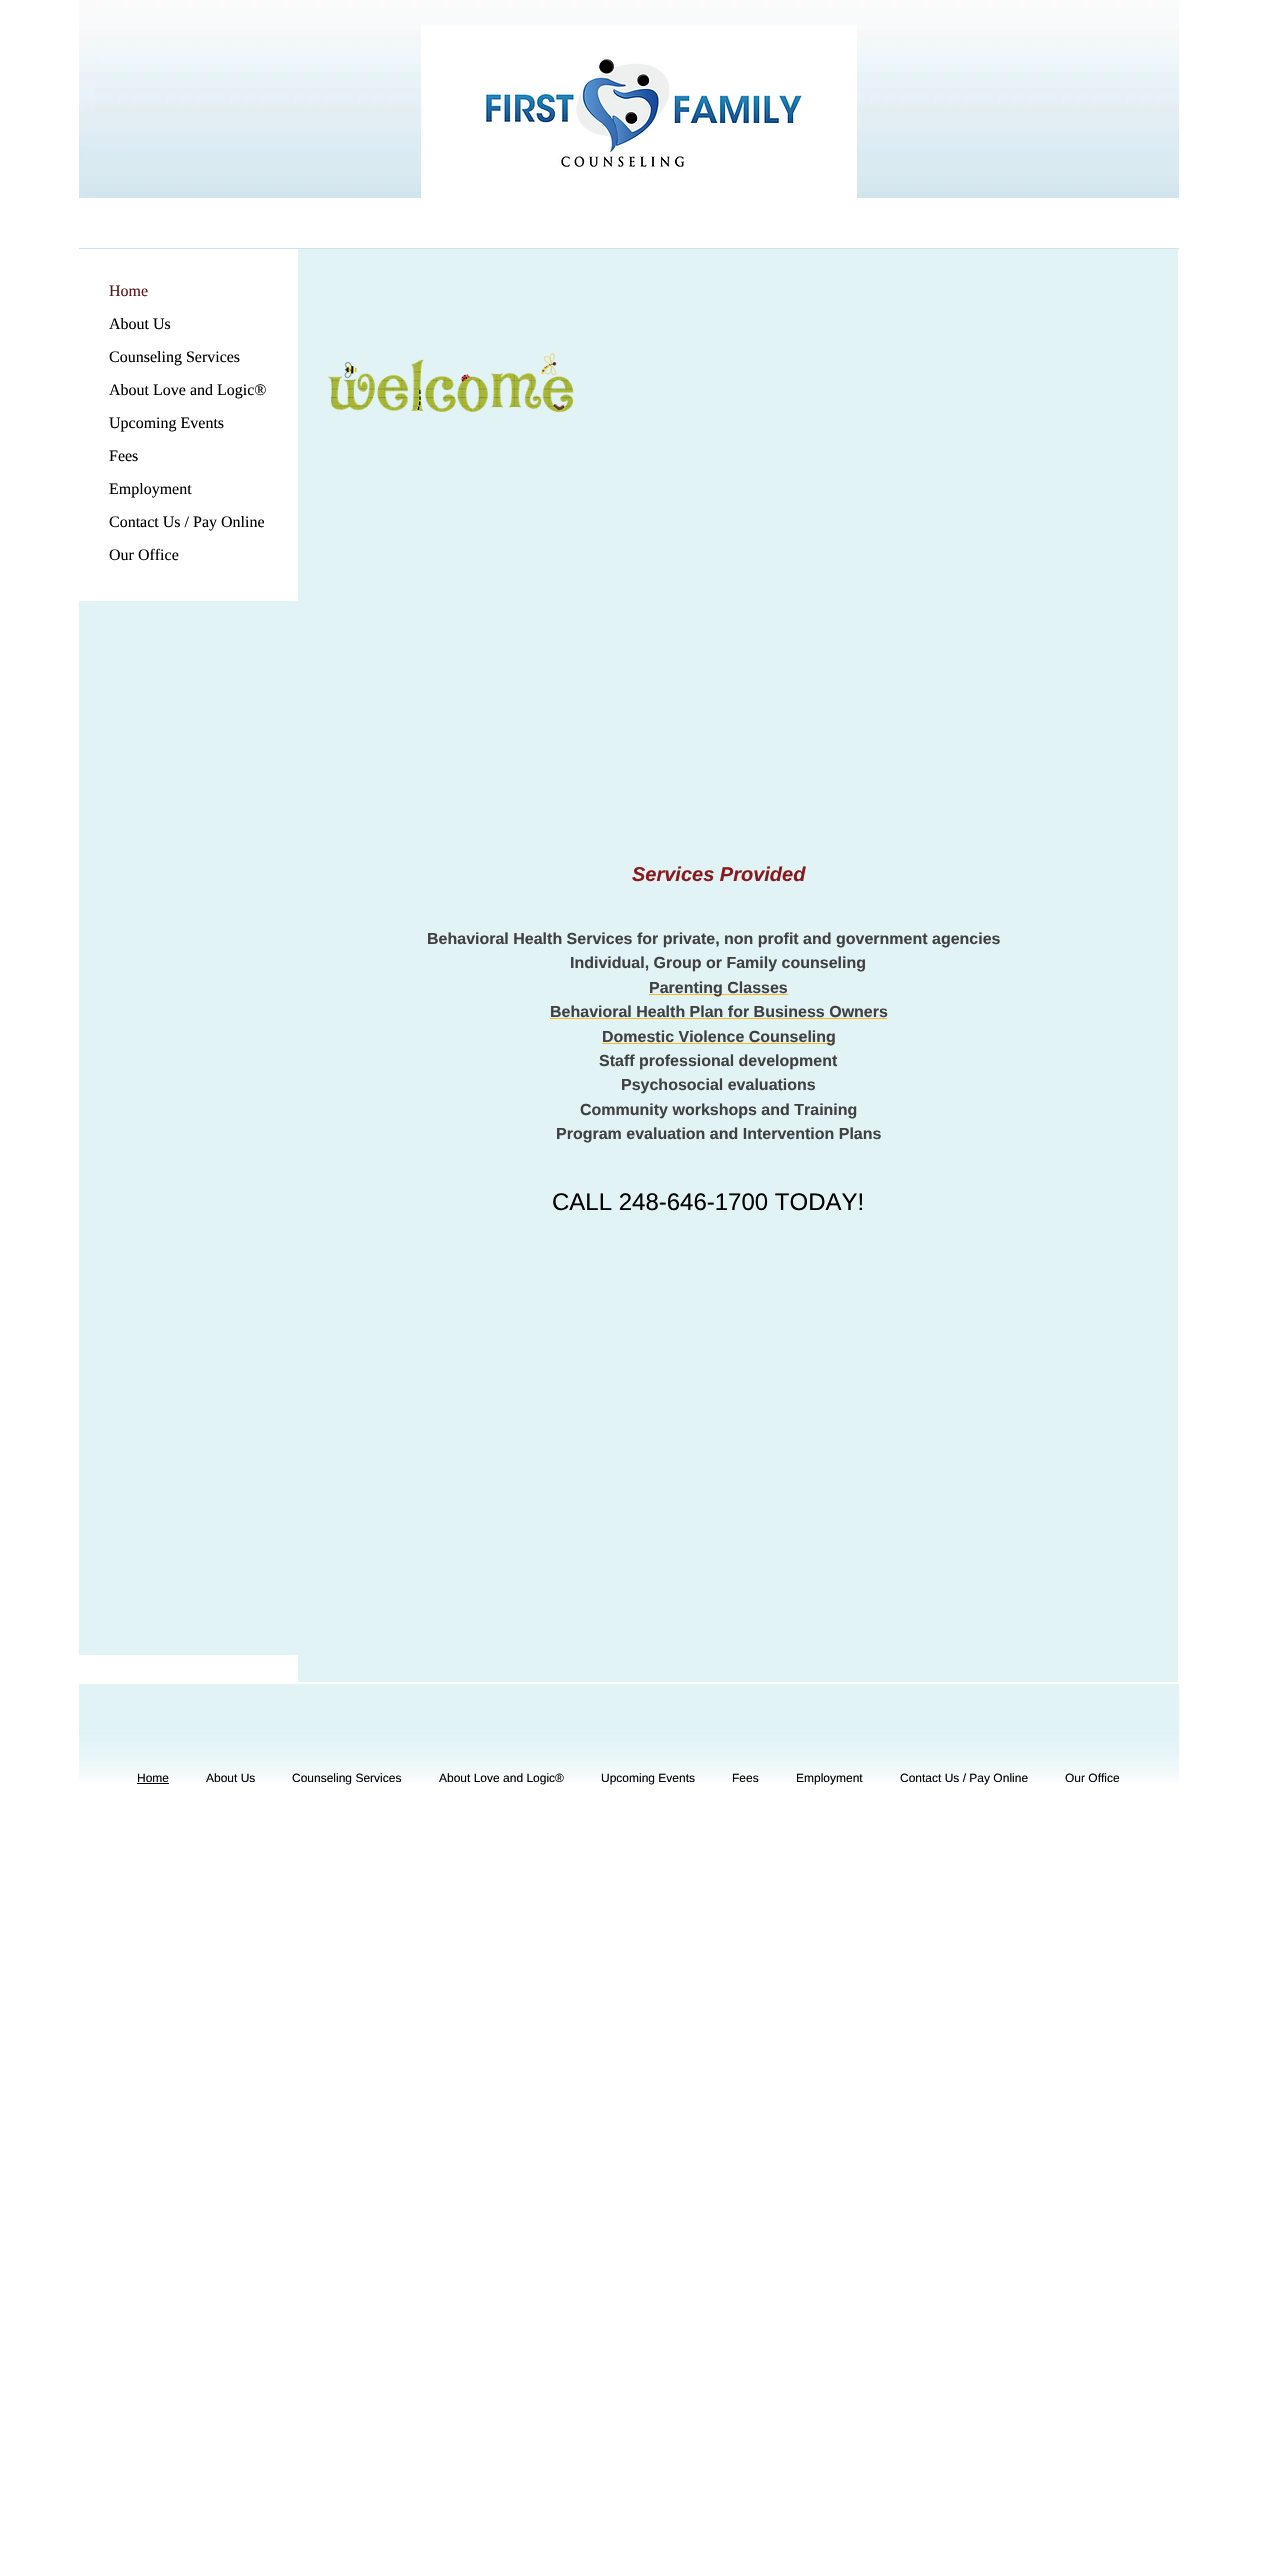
void draw(SkCanvas* c) {
SkPaint p;
p.setAntiAlias(true);
auto F=[&](const char* family, int weight, float size, bool italic = false){SkFontStyle style(weight, SkFontStyle::kNormal_Width,italic ? SkFontStyle::kItalic_Slant : SkFontStyle::kUpright_Slant);SkFont result(fontMgr->matchFamilyStyle(family, style), size);result.setSubpixel(true);return result;};
auto T=[&](const char* s, float x, float y, const SkFont& font){c->drawString(s, x, y, font, p);};
auto R=[&](float x, float y, float w, float h){c->drawRect(SkRect::MakeXYWH(x, y, w, h), p);};
auto I=[&](const char* path, float x, float y, float w, float h){auto image = SkImages::DeferredFromEncodedData(SkData::MakeFromFileName(path));c->drawImageRect(image, SkRect::MakeXYWH(x, y, w, h), SkSamplingOptions());};
c->clear(0xffffffff);
I("1.png",79,0,1100,249);
I("2.png",421,25,436,173);
p.setColor(0xffffffff);
R(79,198,1100,50);
auto f1 = F("Liberation Serif",400,16);
p.setColor(0xff621417);
T("Home",109,296,f1);
p.setColor(0xff000000);
T("About Us",109,329,f1);
T("Counseling Services",109,362,f1);
T("About Love and Logic®",109,395,f1);
T("Upcoming Events",109,428,f1);
T("Fees",109,461,f1);
T("Employment",109,494,f1);
T("Contact Us / Pay Online",109,527,f1);
T("Our Office",109,560,f1);
p.setColor(0xffe1f3f5);
R(79,601,219,1054);
R(298,249,880,1433);
I("3.png",328,353,246,60);
auto f2 = F("Liberation Sans",700,20,true);
p.setColor(0xff89191c);
T("Services Provided",632,881,f2);
auto f3 = F("Liberation Sans",700,16);
p.setColor(0xff404040);
T("Behavioral Health Services for private, non profit and government agencies",427,944,f3);
T("Individual, Group or Family counseling",570,968,f3);
p.setColor(0xfffab826);
R(649,994,139,1);
p.setColor(0xff404040);
T("Parenting Classes",649,993,f3);
T("Behavioral Health Plan for Business Owners",550,1017,f3);
p.setColor(0xfffab826);
R(550,1018,337,1);
R(602,1043,233,1);
p.setColor(0xff404040);
T("Domestic Violence Counseling",602,1042,f3);
T("Staff professional development",599,1066,f3);
T("Psychosocial evaluations",621,1090,f3);
T("Community workshops and Training",580,1115,f3);
T("Program evaluation and Intervention Plans",556,1139,f3);
auto f4 = F("Liberation Sans",400,24);
p.setColor(0xff000000);
T("CALL 248-646-1700 TODAY!",552,1210,f4);
I("4.png",79,1684,1100,98);
auto f5 = F("Liberation Sans",400,12);
T("Home",137,1782,f5);
R(137,1783,32,1);
T("About Us",206,1782,f5);
T("Counseling Services",292,1782,f5);
T("About Love and Logic®",439,1782,f5);
T("Upcoming Events",601,1782,f5);
T("Fees",732,1782,f5);
T("Employment",796,1782,f5);
T("Contact Us / Pay Online",900,1782,f5);
T("Our Office",1065,1782,f5);
}
